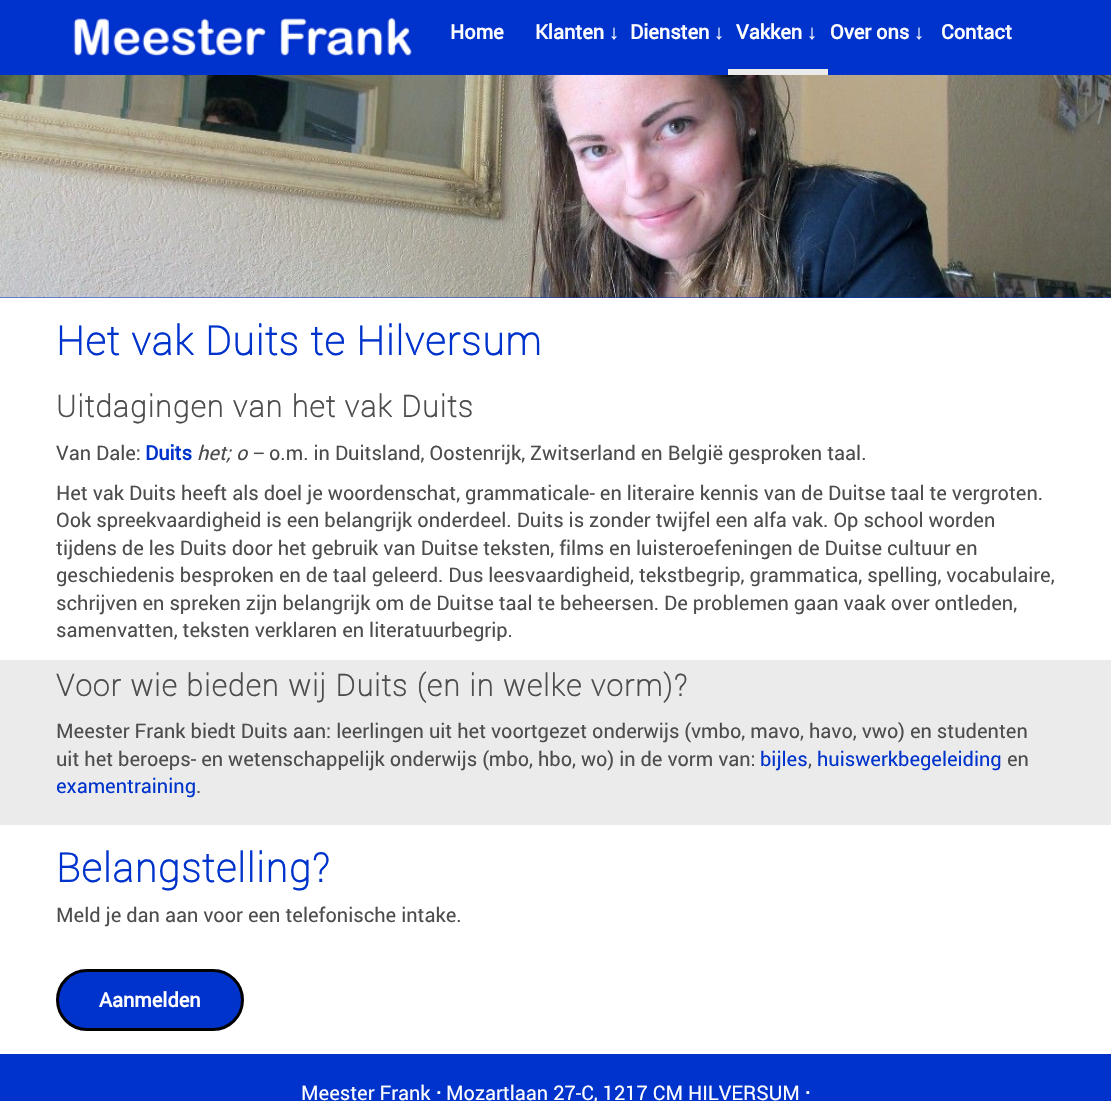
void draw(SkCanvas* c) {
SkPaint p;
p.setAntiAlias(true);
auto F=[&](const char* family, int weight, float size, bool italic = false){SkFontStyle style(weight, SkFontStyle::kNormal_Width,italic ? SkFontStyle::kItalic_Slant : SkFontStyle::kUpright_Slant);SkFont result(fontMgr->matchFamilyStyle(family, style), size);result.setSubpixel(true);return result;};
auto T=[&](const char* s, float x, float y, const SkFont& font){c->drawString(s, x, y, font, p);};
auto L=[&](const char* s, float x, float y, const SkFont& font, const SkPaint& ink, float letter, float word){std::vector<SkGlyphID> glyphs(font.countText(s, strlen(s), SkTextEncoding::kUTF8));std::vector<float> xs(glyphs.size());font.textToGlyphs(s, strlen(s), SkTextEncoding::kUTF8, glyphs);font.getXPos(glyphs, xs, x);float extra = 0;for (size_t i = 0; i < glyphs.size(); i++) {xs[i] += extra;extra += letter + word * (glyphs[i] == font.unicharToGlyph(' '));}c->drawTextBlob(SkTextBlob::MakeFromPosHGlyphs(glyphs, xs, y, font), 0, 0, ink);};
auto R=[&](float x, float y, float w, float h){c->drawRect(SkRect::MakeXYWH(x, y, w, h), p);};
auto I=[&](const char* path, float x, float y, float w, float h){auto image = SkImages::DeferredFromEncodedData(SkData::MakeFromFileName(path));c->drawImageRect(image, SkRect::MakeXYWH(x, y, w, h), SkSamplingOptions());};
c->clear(0xffffffff);
p.setColor(0xff0033cc);
R(0,0,1111,298);
I("1.png",73,16,340,40);
auto f1 = F("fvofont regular",700,20);
p.setColor(0xffffffff);
T("Home",450,39,f1);
T("Klanten",535,39,f1);
auto f2 = F("Liberation Sans",700,20);
T("↓",609,39,f2);
T("Diensten",630,39,f1);
T("↓",714,39,f2);
p.setColor(0xffebebeb);
R(728,69,100,6);
p.setColor(0xffffffff);
T("Vakken",736,39,f1);
T("↓",807,39,f2);
T("Over ons",830,39,f1);
T("↓",914,39,f2);
T("Contact",941,39,f1);
I("2.png",0,75,1111,223);
auto f3 = F("Roboto",700,40);
p.setColor(0xff0033cc);
L("Het vak Duits te Hilversum",56,355,f3,p,1.25,0);
auto f4 = F("Roboto",700,30);
p.setColor(0xff4d4d4d);
L("Uitdagingen van het vak Duits",56,417,f4,p,1.25,0);
auto f5 = F("fvofont regular",400,20);
T("Van Dale:",56,460,f5);
p.setColor(0xff0033cc);
T("Duits",145,460,f1);
auto f6 = F("fvofont regular",400,20,true);
p.setColor(0xff4d4d4d);
T("het; o",197,460,f6);
auto f7 = F("Liberation Sans",400,20);
T("−",253,460,f7);
T("o.m. in Duitsland, Oostenrijk, Zwitserland en België gesproken taal.",269,460,f5);
T("Het vak Duits heeft als doel je woordenschat, grammaticale- en literaire kennis van de Duitse taal te vergroten.",56,500,f5);
T("Ook spreekvaardigheid is een belangrijk onderdeel. Duits is zonder twijfel een alfa vak. Op school worden",56,527,f5);
T("tijdens de les Duits door het gebruik van Duitse teksten, films en luisteroefeningen de Duitse cultuur en",56,555,f5);
T("geschiedenis besproken en de taal geleerd. Dus leesvaardigheid, tekstbegrip, grammatica, spelling, vocabulaire,",56,582,f5);
T("schrijven en spreken zijn belangrijk om de Duitse taal te beheersen. De problemen gaan vaak over ontleden,",56,610,f5);
T("samenvatten, teksten verklaren en literatuurbegrip.",56,637,f5);
p.setColor(0xffebebeb);
R(0,660,1111,165);
p.setColor(0xff4d4d4d);
L("Voor wie bieden wij Duits (en in welke vorm)?",56,696,f4,p,1.25,0);
T("Meester Frank biedt Duits aan: leerlingen uit het voortgezet onderwijs (vmbo, mavo, havo, vwo) en studenten",56,738,f5);
T("uit het beroeps- en wetenschappelijk onderwijs (mbo, hbo, wo) in de vorm van:",56,766,f5);
p.setColor(0xff0033cc);
T("bijles",760,766,f5);
p.setColor(0xff4d4d4d);
T(",",808,766,f5);
p.setColor(0xff0033cc);
T("huiswerkbegeleiding",817,766,f5);
p.setColor(0xff4d4d4d);
T("en",1007,766,f5);
p.setColor(0xff0033cc);
T("examentraining",56,793,f5);
p.setColor(0xff4d4d4d);
T(".",196,793,f5);
p.setColor(0xff0033cc);
L("Belangstelling?",56,882,f3,p,1.25,0);
p.setColor(0xff4d4d4d);
T("Meld je dan aan voor een telefonische intake.",56,922,f5);
p.setColor(0xff0033cc);
c->drawRoundRect(SkRect::MakeXYWH(57.5,970.5,185,59),29.5,29.5,p);
p.setStroke(true);
p.setStrokeWidth(3);
p.setColor(0xff000000);
c->drawRoundRect(SkRect::MakeXYWH(57.5,970.5,185,59),29.5,29.5,p);
p.setStroke(false);
p.setColor(0xffffffff);
T("Aanmelden",99,1007,f1);
p.setColor(0xff0033cc);
R(0,1054,1111,47);
p.setColor(0xffffffff);
T("Meester Frank",301,1100,f5);
T("·",436,1100,f1);
T("Mozartlaan 27-C, 1217 CM HILVERSUM",446,1100,f5);
T("·",805,1100,f1);
}
